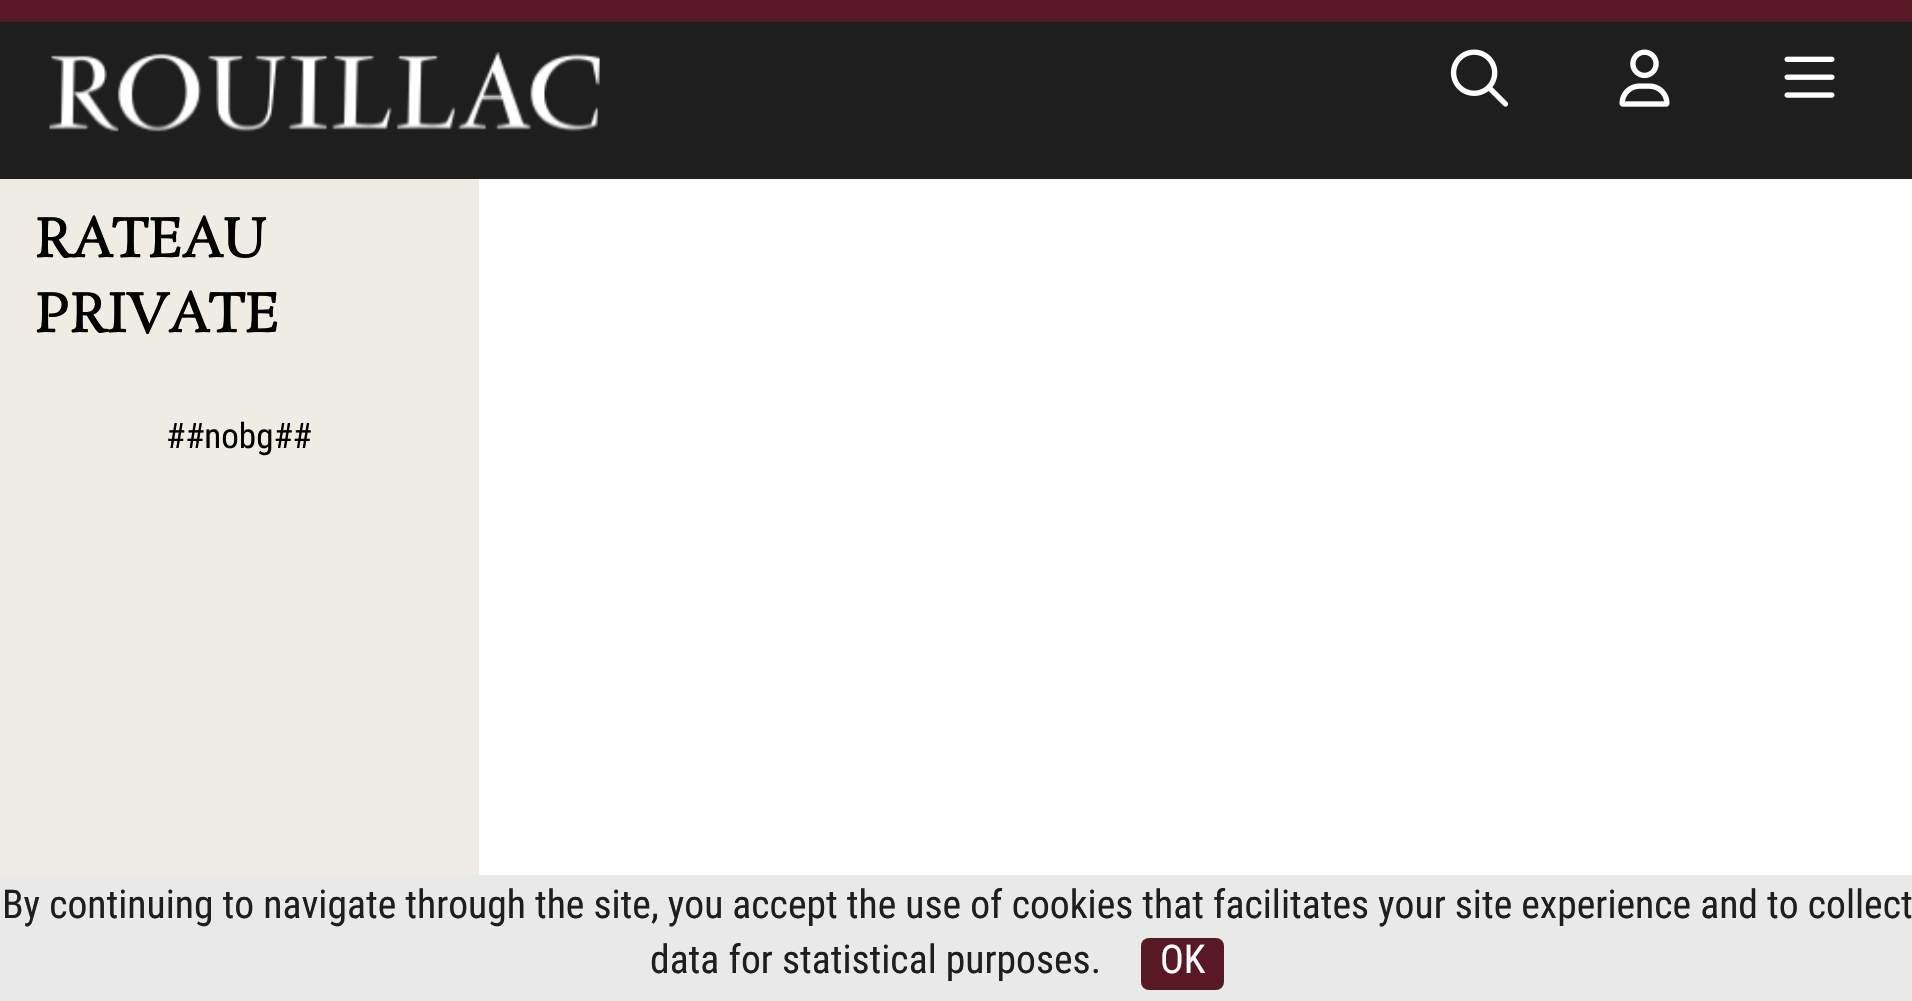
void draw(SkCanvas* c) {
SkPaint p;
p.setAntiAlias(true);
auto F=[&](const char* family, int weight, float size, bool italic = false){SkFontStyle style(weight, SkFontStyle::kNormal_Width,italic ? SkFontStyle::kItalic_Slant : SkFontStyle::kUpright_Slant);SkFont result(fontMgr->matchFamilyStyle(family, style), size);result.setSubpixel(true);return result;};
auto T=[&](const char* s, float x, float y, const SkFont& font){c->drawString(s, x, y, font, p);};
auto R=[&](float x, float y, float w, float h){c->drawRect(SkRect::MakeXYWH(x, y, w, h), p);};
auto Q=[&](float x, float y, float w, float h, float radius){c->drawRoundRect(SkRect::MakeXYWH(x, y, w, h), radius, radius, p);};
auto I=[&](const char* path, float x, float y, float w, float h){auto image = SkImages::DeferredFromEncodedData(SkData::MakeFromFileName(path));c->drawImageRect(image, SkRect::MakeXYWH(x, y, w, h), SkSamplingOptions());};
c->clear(0xffefece4);
p.setColor(0xff1e1e1e);
R(0,22,1912,157);
p.setColor(0xff591826);
R(0,0,1912,22);
I("1.png",49,52,551,80);
I("2.png",1450,49,59,58);
I("3.png",1619,49,51,58);
I("4.png",1784,56,51,42);
auto f1 = F("Rosarivo",700,53);
p.setColor(0xff000000);
T("RATEAU",35,257,f1);
T("PRIVATE",35,332,f1);
auto f2 = F("Roboto Condensed",400,35);
T("##nobg##",166,448,f2);
p.setColor(0xffffffff);
R(479,179,1433,696);
p.setColor(0xffe9e9e9);
R(0,875,1912,126);
auto f3 = F("Roboto Condensed",400,39.6);
p.setColor(0xff1e1e1e);
T("By continuing to navigate through the site, you accept the use of cookies that facilitates your site experience and to collect",2,918,f3);
T("data for statistical purposes.",650,973,f3);
p.setColor(0xff591826);
Q(1141,938,83,52,8);
p.setColor(0xffffffff);
T("OK",1160,973,f3);
}
